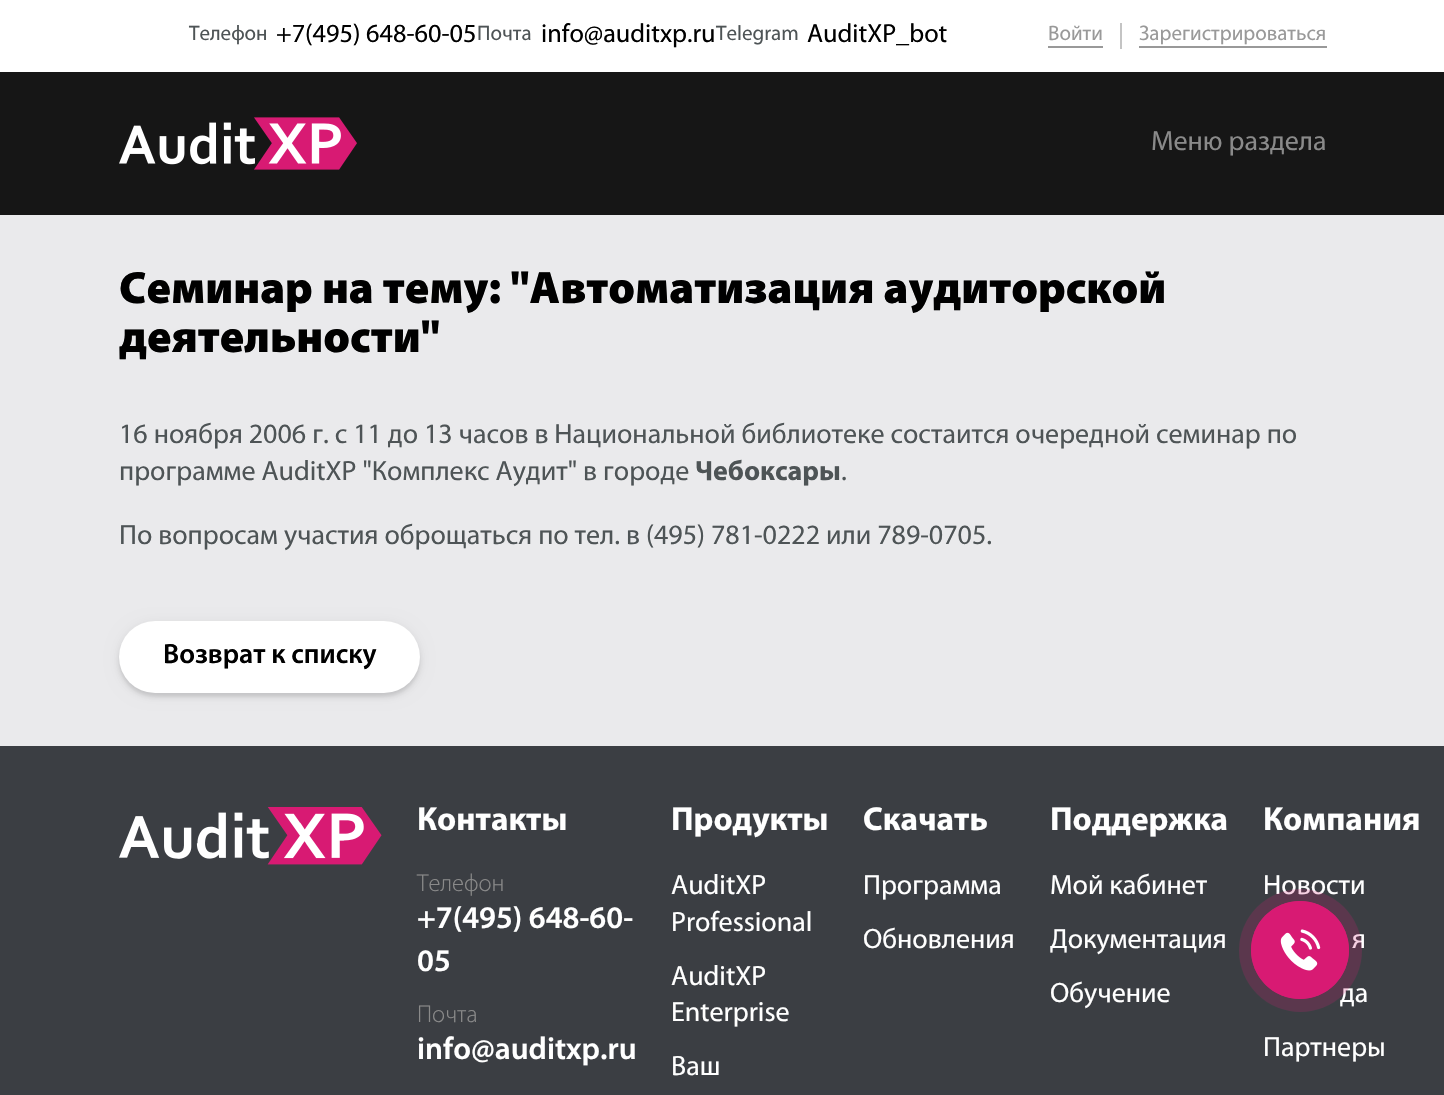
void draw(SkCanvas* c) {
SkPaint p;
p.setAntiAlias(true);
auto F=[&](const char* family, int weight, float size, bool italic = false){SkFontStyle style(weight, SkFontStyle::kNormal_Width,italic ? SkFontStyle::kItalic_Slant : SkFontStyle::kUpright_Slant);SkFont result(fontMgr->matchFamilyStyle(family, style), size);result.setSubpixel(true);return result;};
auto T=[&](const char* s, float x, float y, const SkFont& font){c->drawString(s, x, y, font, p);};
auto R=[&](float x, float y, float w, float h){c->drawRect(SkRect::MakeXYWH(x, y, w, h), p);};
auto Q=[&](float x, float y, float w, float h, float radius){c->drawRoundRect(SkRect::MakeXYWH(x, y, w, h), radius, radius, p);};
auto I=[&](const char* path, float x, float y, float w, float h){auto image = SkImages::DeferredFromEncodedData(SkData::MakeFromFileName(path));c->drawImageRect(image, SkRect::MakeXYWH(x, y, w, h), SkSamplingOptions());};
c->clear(0xffeaeaec);
p.setColor(0xffffffff);
R(0,0,1444,72);
auto f1 = F("Myriad",400,21);
p.setColor(0xff4e5456);
T("Телефон",189,40,f1);
auto f2 = F("Myriad",400,26.25);
p.setColor(0xff000000);
T("+7(495) 648-60-05",276,42,f2);
p.setColor(0xff4e5456);
T("Почта",477,40,f1);
p.setColor(0xff000000);
T("info@auditxp.ru",541,42,f2);
p.setColor(0xff4e5456);
T("Telegram",716,40,f1);
p.setColor(0xff000000);
T("AuditXP_bot",807,42,f2);
p.setColor(0xffc4c4c4);
R(1120,23,2,26);
p.setColor(0xff999999);
T("Войти",1048,40,f1);
R(1048,46,55,2);
T("Зарегистрироваться",1139,40,f1);
R(1139,46,188,2);
p.setColor(0xff161616);
R(0,72,1444,143);
I("1.png",119,117,238,53);
auto f3 = F("Myriad",400,28);
p.setColor(0xff8a8a8a);
T("Меню раздела",1151,150,f3);
auto f4 = F("Myriad",900,45.5);
p.setColor(0xff000000);
T("Семинар на тему: \"Автоматизация аудиторской",119,303,f4);
T("деятельности\"",119,352,f4);
p.setColor(0xff4e5456);
T("16 ноября 2006 г. с 11 до 13 часов в Национальной библиотеке состаится очередной семинар по",119,443,f3);
T("программе AuditXP \"Комплекс Аудит\" в городе",119,480,f3);
auto f5 = F("Myriad",700,28);
T("Чебоксары",695,480,f5);
T(".",841,480,f3);
T("По вопросам участия оброщаться по тел. в (495) 781-0222 или 789-0705.",119,544,f3);
p.setColor(0x1f000000);
p.setMaskFilter(SkMaskFilter::MakeBlur(kNormal_SkBlurStyle, 2));
c->drawRoundRect(SkRect::MakeXYWH(119,625,301,72),36,36,p);
p.setMaskFilter(nullptr);
p.setColor(0x0f000000);
p.setMaskFilter(SkMaskFilter::MakeBlur(kNormal_SkBlurStyle, 7));
c->drawRoundRect(SkRect::MakeXYWH(119,623,301,72),36,36,p);
p.setMaskFilter(nullptr);
p.setColor(0xffffffff);
Q(119,621,301,72,36);
auto f6 = F("Myriad",600,28);
p.setColor(0xff000000);
T("Возврат к списку",163,663,f6);
p.setColor(0xff3b3e43);
R(0,746,1444,349);
I("2.png",119,807,263,58);
auto f7 = F("Myriad",700,33.25);
p.setColor(0xffffffff);
T("Контакты",417,830,f7);
auto f8 = F("Myriad",300,24.5);
p.setColor(0xff8a8a8a);
T("Телефон",417,891,f8);
auto f9 = F("Myriad",600,31.5);
p.setColor(0xffffffff);
T("+7(495) 648-60-",417,928,f9);
T("05",417,971,f9);
p.setColor(0xff8a8a8a);
T("Почта",417,1022,f8);
p.setColor(0xffffffff);
T("info@auditxp.ru",417,1059,f9);
T("Продукты",671,830,f7);
T("AuditXP",671,894,f3);
T("Professional",671,931,f3);
T("AuditXP",671,985,f3);
T("Enterprise",671,1021,f3);
T("Ваш",671,1075,f3);
T("Скачать",863,830,f7);
T("Программа",863,894,f3);
T("Обновления",863,948,f3);
T("Поддержка",1050,830,f7);
T("Мой кабинет",1050,894,f3);
T("Документация",1050,948,f3);
T("Обучение",1050,1002,f3);
T("Компания",1263,830,f7);
T("Новости",1263,894,f3);
T("я",1352,948,f3);
T("да",1340,1002,f3);
T("Партнеры",1263,1056,f3);
p.setColor(0x33d81a73);
c->drawCircle(1300.5,950.5,61.5,p);
p.setStroke(true);
p.setStrokeWidth(1);
p.setColor(0xffd81a73);
c->drawCircle(1300,950,48.5,p);
p.setStroke(false);
c->drawCircle(1300,950,49,p);
I("3.png",1280,929,41,42);
}
